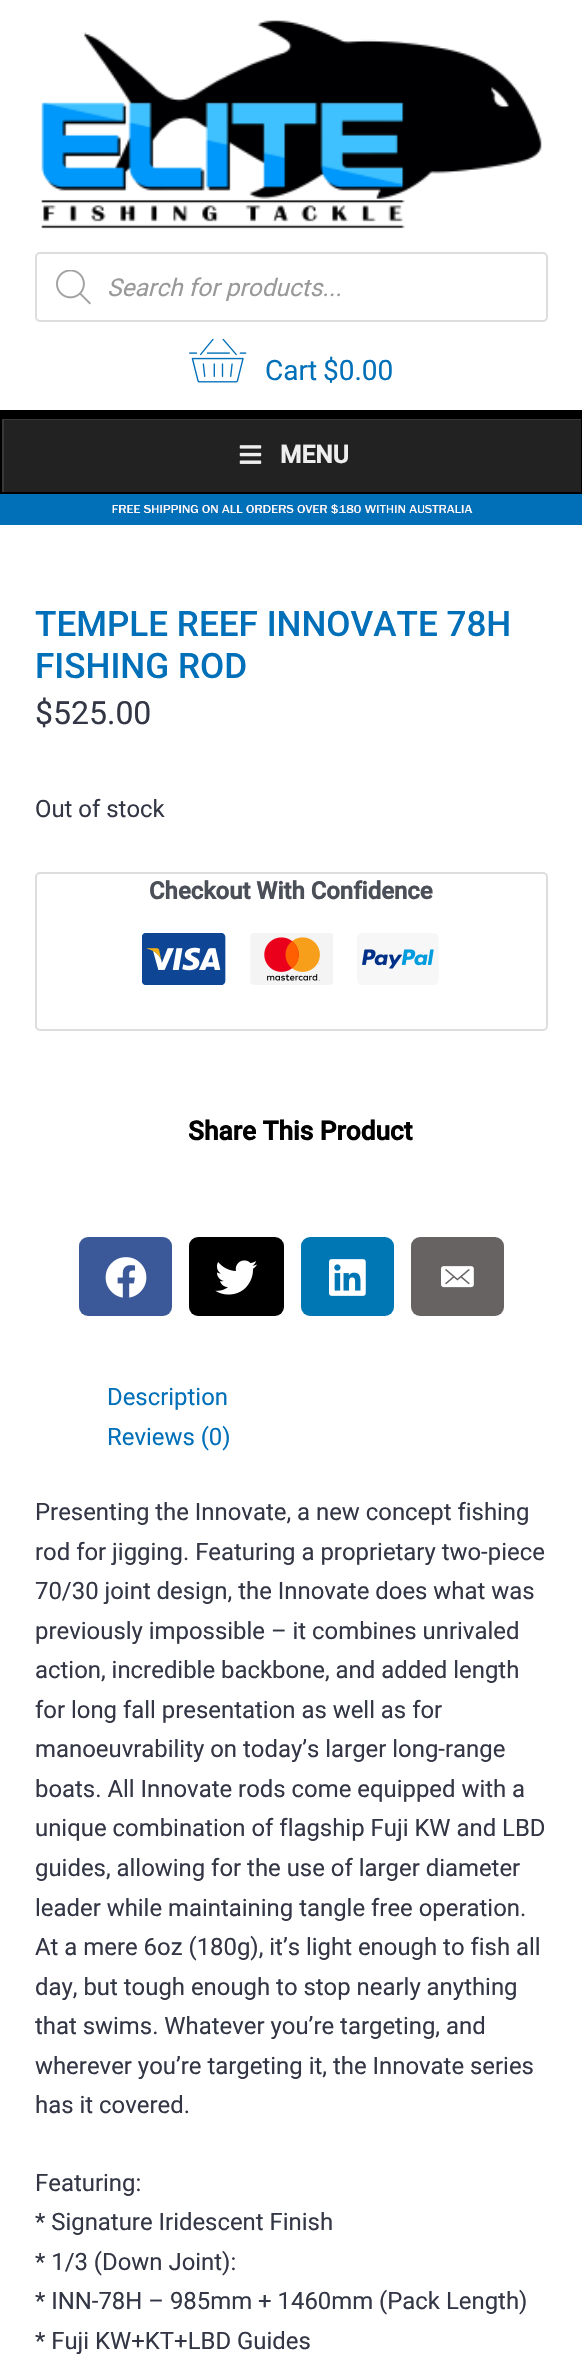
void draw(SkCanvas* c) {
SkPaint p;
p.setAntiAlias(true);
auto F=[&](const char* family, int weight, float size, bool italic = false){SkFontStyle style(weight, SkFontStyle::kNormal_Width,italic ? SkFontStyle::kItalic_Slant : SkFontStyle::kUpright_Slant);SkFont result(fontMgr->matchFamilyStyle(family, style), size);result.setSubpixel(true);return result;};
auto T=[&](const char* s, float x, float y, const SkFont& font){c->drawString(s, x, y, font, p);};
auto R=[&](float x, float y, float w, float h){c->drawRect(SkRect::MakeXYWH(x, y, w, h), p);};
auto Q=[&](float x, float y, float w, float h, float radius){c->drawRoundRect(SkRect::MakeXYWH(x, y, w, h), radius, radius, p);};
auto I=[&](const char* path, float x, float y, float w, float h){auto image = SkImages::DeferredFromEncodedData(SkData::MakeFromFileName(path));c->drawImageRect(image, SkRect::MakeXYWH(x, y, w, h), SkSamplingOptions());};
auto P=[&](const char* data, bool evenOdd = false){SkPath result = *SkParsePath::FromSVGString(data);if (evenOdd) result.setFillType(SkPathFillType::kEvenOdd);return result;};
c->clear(0xffffffff);
p.setColor(0xff000000);
R(0,410,582,7);
I("1.png",41,20,501,209);
p.setStroke(true);
p.setStrokeWidth(2);
p.setColor(0xffdddddd);
c->drawRoundRect(SkRect::MakeXYWH(36,253,511,68),4,4,p);
I("2.png",56,270,35,35);
auto f1 = F("Roboto",400,24.5,true);
p.setStroke(false);
p.setColor(0xff999999);
T("Search for products...",107,296,f1);
I("3.png",189,338,58,45);
auto f2 = F("Roboto",400,28);
p.setColor(0xff0170b9);
T("Cart",265,380,f2);
T("$0.00",323,380,f2);
p.setColor(0xff222222);
R(4,420,577,72);
c->save();
c->clipRect(SkRect::MakeXYWH(2,418,579,74));
p.setColor(0xff383838);
c->drawPath(P("M-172 245h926v420h-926zm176 175h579v74h-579z",true),p);
c->restore();
p.setStroke(true);
p.setColor(0xff000000);
c->drawRect(SkRect::MakeXYWH(1,418,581,75),p);
I("4.png",239,445,23,19);
auto f3 = F("Roboto",700,24.5);
p.setStroke(false);
p.setColor(0xffeeeeee);
T("MENU",280,463,f3);
p.setColor(0xff0170b8);
R(0,494,582,31);
I("5.png",112,504,361,10);
auto f4 = F("Roboto",500,35.1);
p.setColor(0xff0170b9);
T("TEMPLE REEF INNOVATE 78H",35,636,f4);
T("FISHING ROD",35,678,f4);
auto f5 = F("Roboto",400,32);
p.setColor(0xff333745);
T("$525.00",35,724,f5);
auto f6 = F("Roboto",400,23.9);
T("Out of stock",35,817,f6);
p.setStroke(true);
p.setColor(0xffdddddd);
c->drawRoundRect(SkRect::MakeXYWH(36,873,511,157),4,4,p);
auto f7 = F("Roboto",700,23.9);
p.setStroke(false);
p.setColor(0xff4b4f58);
T("Checkout With Confidence",149,899,f7);
I("6.png",142,933,84,52);
I("7.png",250,933,83,52);
I("8.png",357,933,82,52);
auto f8 = F("Roboto",700,26.25);
p.setColor(0xff000000);
T("Share This Product",188,1140,f8);
p.setColor(0xff3b5998);
Q(79,1237,93,79,9);
I("9.png",105,1257,42,41);
p.setColor(0xff000000);
Q(189,1237,95,79,9);
I("10.png",215,1260,43,35);
p.setColor(0xff0077b5);
Q(301,1237,93,79,9);
I("11.png",329,1259,37,37);
p.setColor(0xff676363);
Q(411,1237,93,79,9);
I("12.png",441,1266,33,22);
p.setColor(0xff0170b9);
T("Description",107,1405,f6);
T("Reviews (0)",107,1445,f6);
p.setColor(0xff333745);
T("Presenting the Innovate, a new concept fishing",35,1520,f6);
T("rod for jigging. Featuring a proprietary two-piece",35,1560,f6);
T("70/30 joint design, the Innovate does what was",35,1599,f6);
T("previously impossible – it combines unrivaled",35,1639,f6);
T("action, incredible backbone, and added length",35,1678,f6);
T("for long fall presentation as well as for",35,1718,f6);
T("manoeuvrability on today’s larger long-range",35,1757,f6);
T("boats. All Innovate rods come equipped with a",35,1797,f6);
T("unique combination of flagship Fuji KW and LBD",35,1836,f6);
T("guides, allowing for the use of larger diameter",35,1876,f6);
T("leader while maintaining tangle free operation.",35,1916,f6);
T("At a mere 6oz (180g), it’s light enough to fish all",35,1955,f6);
T("day, but tough enough to stop nearly anything",35,1995,f6);
T("that swims. Whatever you’re targeting, and",35,2034,f6);
T("wherever you’re targeting it, the Innovate series",35,2074,f6);
T("has it covered.",35,2113,f6);
T("Featuring:",35,2191,f6);
T("* Signature Iridescent Finish",35,2230,f6);
T("* 1/3 (Down Joint):",35,2270,f6);
T("* INN-78H – 985mm + 1460mm (Pack Length)",35,2309,f6);
T("* Fuji KW+KT+LBD Guides",35,2349,f6);
}
